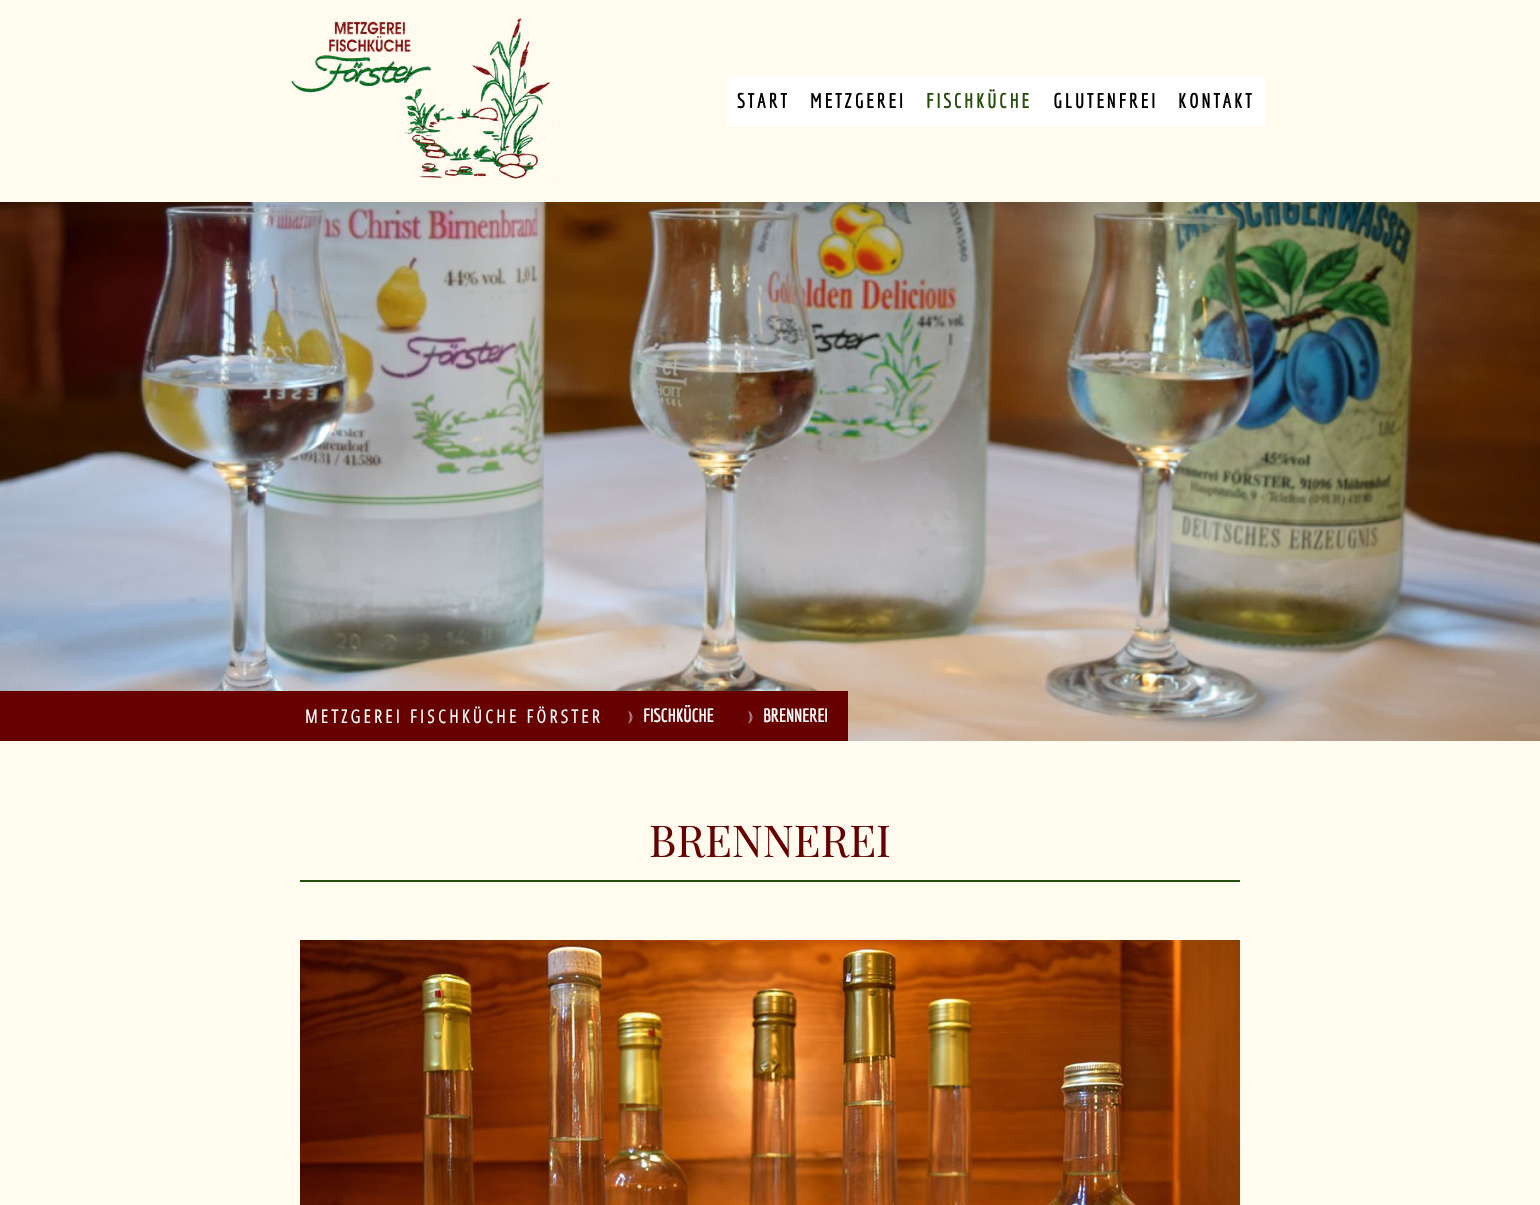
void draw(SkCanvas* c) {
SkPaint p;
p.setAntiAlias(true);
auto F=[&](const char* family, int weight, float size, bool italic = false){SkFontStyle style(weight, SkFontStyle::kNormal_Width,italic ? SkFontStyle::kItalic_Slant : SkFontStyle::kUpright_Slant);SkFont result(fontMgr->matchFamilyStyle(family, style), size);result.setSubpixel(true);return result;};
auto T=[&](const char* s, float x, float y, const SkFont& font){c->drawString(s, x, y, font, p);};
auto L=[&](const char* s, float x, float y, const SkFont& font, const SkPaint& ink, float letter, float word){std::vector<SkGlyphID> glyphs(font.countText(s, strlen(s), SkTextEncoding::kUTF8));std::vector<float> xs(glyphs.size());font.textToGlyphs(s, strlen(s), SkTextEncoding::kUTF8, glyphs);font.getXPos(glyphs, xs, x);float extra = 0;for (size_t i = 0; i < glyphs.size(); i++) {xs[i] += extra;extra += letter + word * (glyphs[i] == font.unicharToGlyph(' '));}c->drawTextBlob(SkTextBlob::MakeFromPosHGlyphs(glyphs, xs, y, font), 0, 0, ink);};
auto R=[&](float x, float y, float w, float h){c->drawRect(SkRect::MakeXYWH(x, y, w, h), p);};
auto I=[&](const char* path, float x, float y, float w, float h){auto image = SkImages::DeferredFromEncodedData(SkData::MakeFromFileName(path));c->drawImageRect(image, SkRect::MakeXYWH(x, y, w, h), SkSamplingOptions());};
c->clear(0xffffffff);
I("2.png",0,202,1540,539);
p.setColor(0x33000000);
p.setMaskFilter(SkMaskFilter::MakeBlur(kNormal_SkBlurStyle, 15));
c->drawRect(SkRect::MakeXYWH(0,0,1540,202),p);
p.setMaskFilter(nullptr);
p.setColor(0xfffffbee);
R(0,0,1540,202);
I("1.png",291,18,269,164);
p.setColor(0xffffffff);
R(727,76,538,50);
auto f1 = F("Economica",700,20);
p.setColor(0xff000000);
L("START",737,108,f1,p,2.75,0);
L("METZGEREI",810,108,f1,p,2.75,0);
p.setColor(0xff264f0e);
L("FISCHKÜCHE",926,108,f1,p,2.75,0);
p.setColor(0xff000000);
L("GLUTENFREI",1053,108,f1,p,2.75,0);
L("KONTAKT",1178,108,f1,p,2.75,0);
p.setColor(0xfffffbee);
R(0,741,1540,464);
p.setColor(0xff670000);
R(0,691,848,50);
auto f2 = F("Open Sans Condensed",700,18);
p.setColor(0xffffffff);
L("METZGEREI FISCHKÜCHE FÖRSTER",305,723,f2,p,3.6,0);
auto f3 = F("FreeSerif",700,14);
p.setColor(0xffb38080);
T("⦆",628,721,f3);
auto f4 = F("Economica",700,18);
p.setColor(0xffffffff);
T("FISCHKÜCHE",643,722,f4);
p.setColor(0xffb38080);
T("⦆",748,721,f3);
p.setColor(0xffffffff);
T("BRENNEREI",763,722,f4);
auto f5 = F("Playfair Display",400,44);
p.setColor(0xff670000);
T("BRENNEREI",649,857,f5);
p.setColor(0xff264f0e);
R(300,880,940,2);
I("3.png",300,940,940,265);
}
